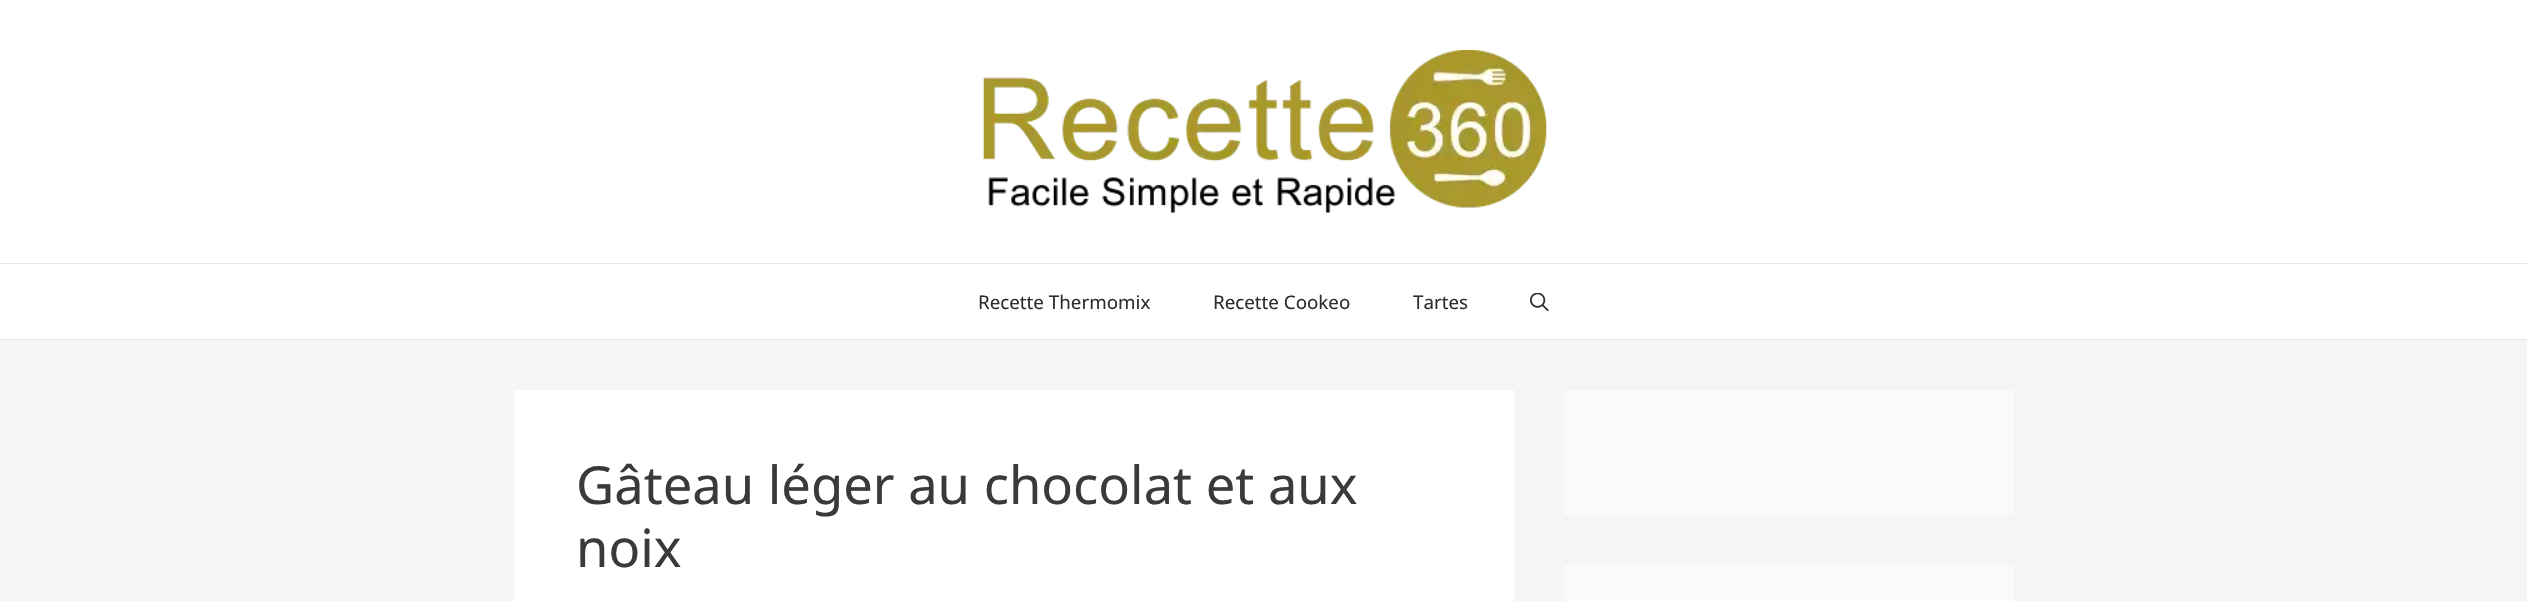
void draw(SkCanvas* c) {
SkPaint p;
p.setAntiAlias(true);
auto F=[&](const char* family, int weight, float size, bool italic = false){SkFontStyle style(weight, SkFontStyle::kNormal_Width,italic ? SkFontStyle::kItalic_Slant : SkFontStyle::kUpright_Slant);SkFont result(fontMgr->matchFamilyStyle(family, style), size);result.setSubpixel(true);return result;};
auto T=[&](const char* s, float x, float y, const SkFont& font){c->drawString(s, x, y, font, p);};
auto R=[&](float x, float y, float w, float h){c->drawRect(SkRect::MakeXYWH(x, y, w, h), p);};
auto I=[&](const char* path, float x, float y, float w, float h){auto image = SkImages::DeferredFromEncodedData(SkData::MakeFromFileName(path));c->drawImageRect(image, SkRect::MakeXYWH(x, y, w, h), SkSamplingOptions());};
c->clear(0xfff7f4f6);
p.setColor(0xffffffff);
R(0,0,2527,263);
I("1.png",983,50,564,163);
R(0,264,2527,75);
p.setColor(0xffe6e6e6);
R(0,263,2527,1);
R(0,339,2527,1);
auto f1 = F("Noto Sans",400,18.75);
p.setColor(0xff2d2d2d);
T("Recette Thermomix",978,309,f1);
T("Recette Cookeo",1213,309,f1);
T("Tartes",1413,309,f1);
I("2.png",1530,293,19,18);
p.setColor(0xffffffff);
R(514,390,1000,211);
auto f2 = F("Noto Sans",400,52.5);
p.setColor(0xff3a3a3a);
T("Gâteau léger au chocolat et aux",576,504,f2);
T("noix",576,567,f2);
p.setColor(0xfffbfafb);
R(1564,390,450,125);
R(1564,565,450,36);
}
